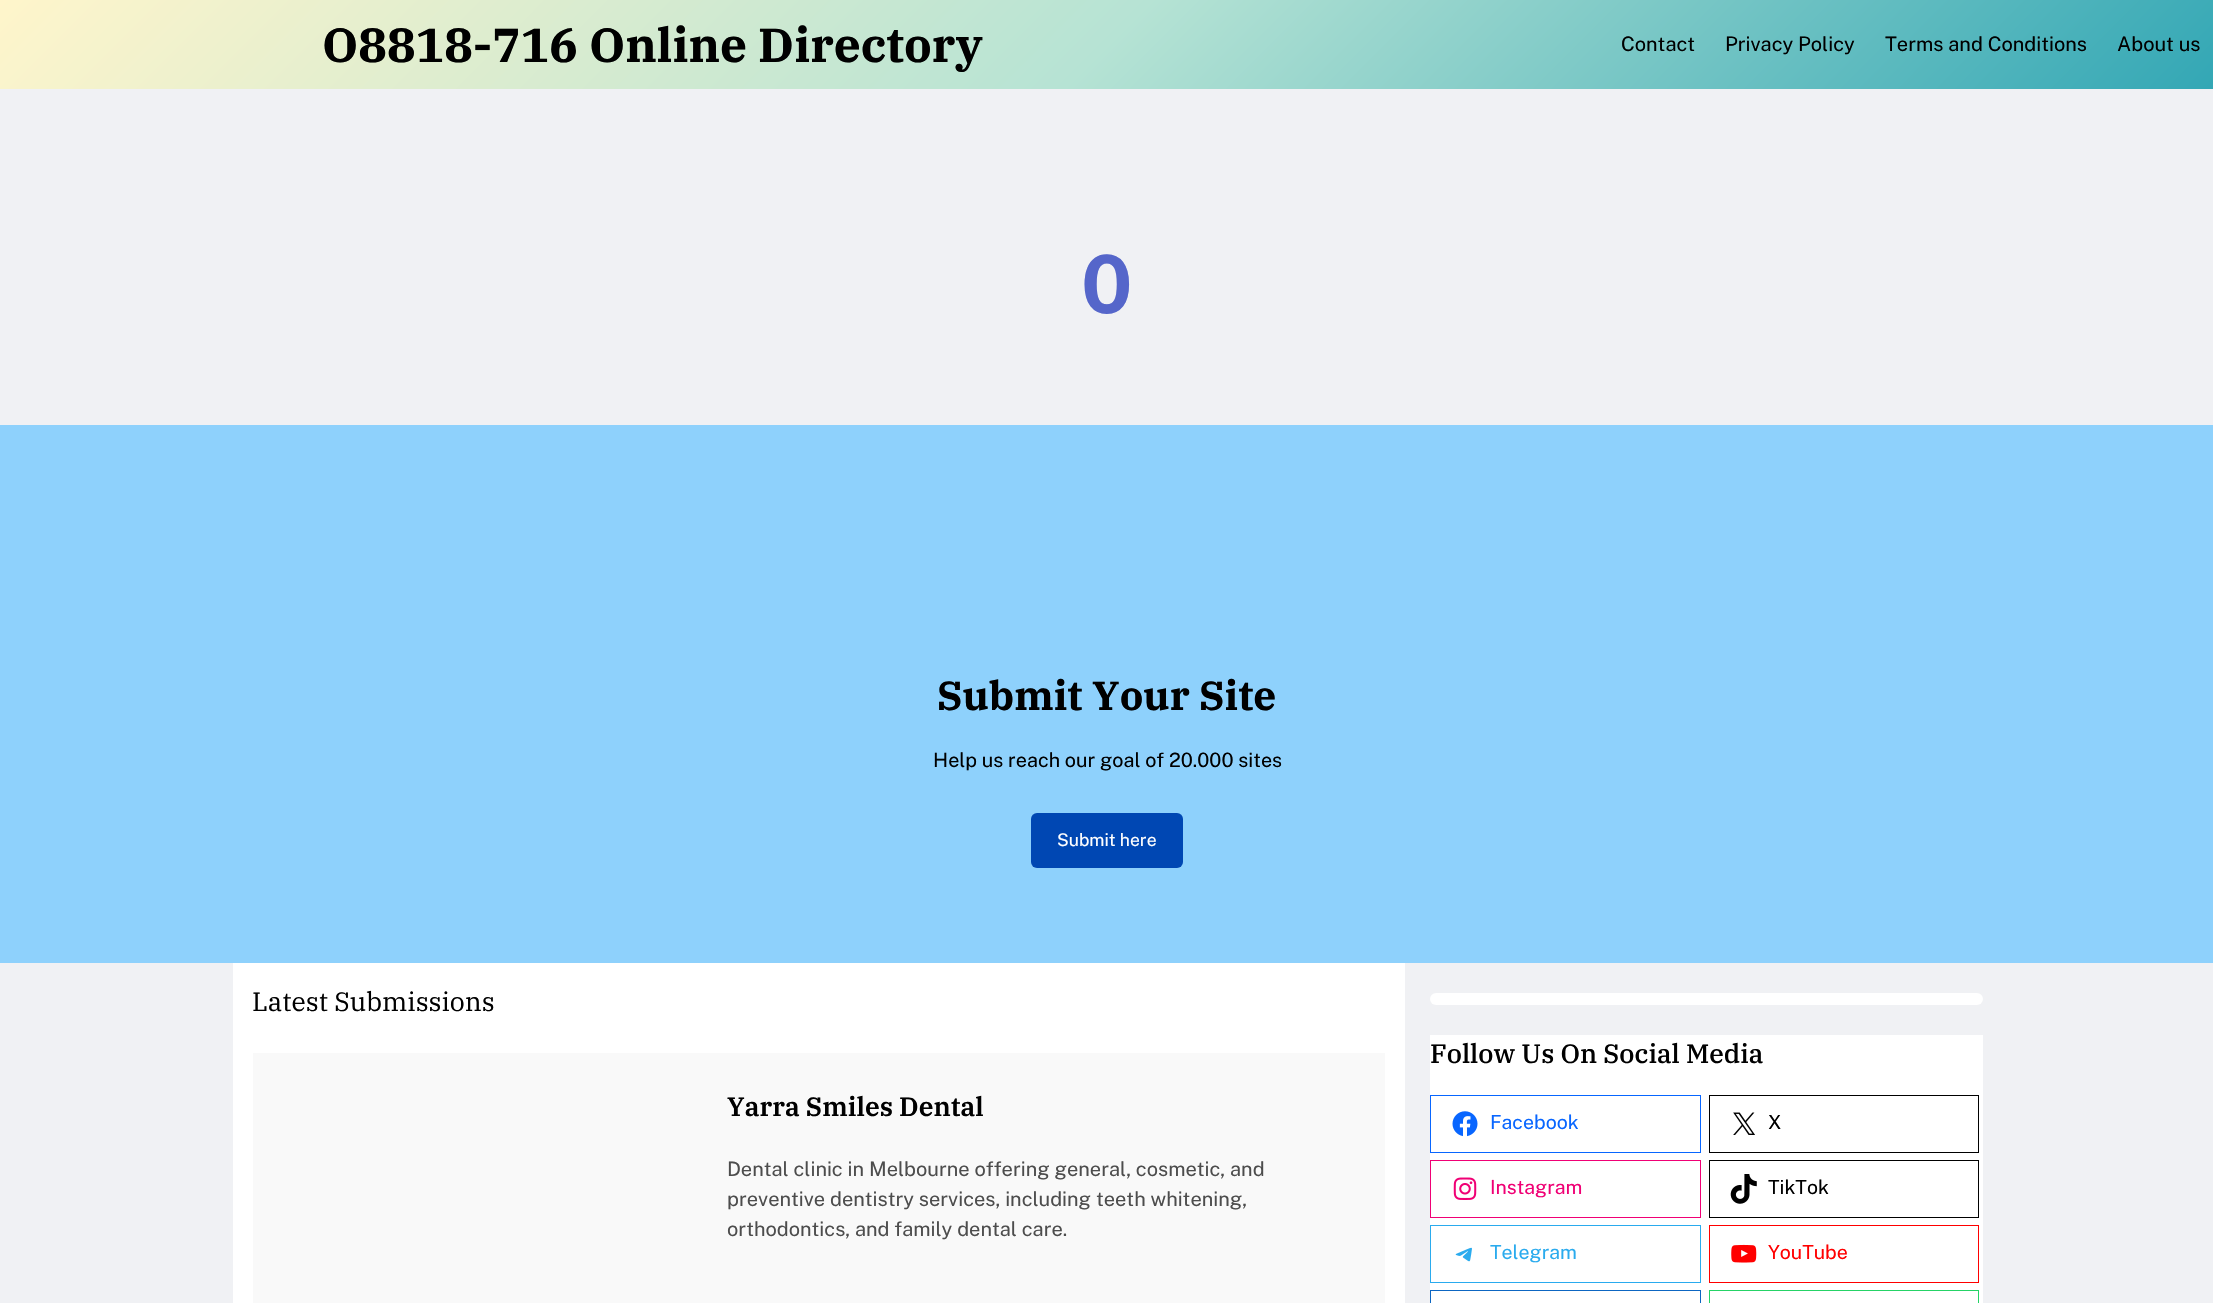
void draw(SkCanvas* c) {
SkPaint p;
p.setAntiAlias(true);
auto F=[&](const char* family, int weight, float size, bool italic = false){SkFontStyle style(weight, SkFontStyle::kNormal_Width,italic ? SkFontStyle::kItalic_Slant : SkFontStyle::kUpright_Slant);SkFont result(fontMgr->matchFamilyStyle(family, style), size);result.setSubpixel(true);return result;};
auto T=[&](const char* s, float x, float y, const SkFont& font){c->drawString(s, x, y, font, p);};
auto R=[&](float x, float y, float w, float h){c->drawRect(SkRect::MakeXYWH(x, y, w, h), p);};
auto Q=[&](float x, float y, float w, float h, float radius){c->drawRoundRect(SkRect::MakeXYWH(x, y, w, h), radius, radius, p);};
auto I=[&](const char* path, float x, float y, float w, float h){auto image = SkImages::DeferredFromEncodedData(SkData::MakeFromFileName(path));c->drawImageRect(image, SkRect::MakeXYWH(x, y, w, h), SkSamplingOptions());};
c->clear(0xfff0f1f4);
{
const SkColor colors[] = {0xfffff5cb,0xffb6e3d4,0xff33a7b5};
const float stops[] = {0,.5,1};
const SkPoint ends[] = {{531,-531}, {1683,620}};
p.setShader(SkGradientShader::MakeLinear(ends, colors, stops, 3, SkTileMode::kClamp));
p.setAlpha(255);
}
R(0,0,2213,89);
auto f1 = F("IBM Plex Serif",700,47.75);
p.setShader(nullptr);
p.setColor(0xff000000);
T("O8818-716 Online Directory",322,62,f1);
auto f2 = F("Public Sans",400,20);
T("Contact",1621,51,f2);
T("Privacy Policy",1725,51,f2);
T("Terms and Conditions",1885,51,f2);
T("About us",2117,51,f2);
auto f3 = F("Public Sans",700,80);
p.setColor(0xff5566ca);
T("0",1081,313,f3);
p.setColor(0xff8ed1fc);
R(0,425,2213,538);
auto f4 = F("IBM Plex Serif",700,40.6);
p.setColor(0xff000000);
T("Submit Your Site",937,710,f4);
auto f5 = F("Public Sans",400,19.75);
T("Help us reach our goal of 20.000 sites",933,767,f5);
p.setColor(0xff0047b3);
Q(1031,813,152,55,6);
auto f6 = F("Public Sans",400,17.5);
p.setColor(0xffffffff);
T("Submit here",1057,846,f6);
R(233,963,1172,340);
auto f7 = F("IBM Plex Serif",400,26.5);
p.setColor(0xff000000);
T("Latest Submissions",252,1011,f7);
p.setColor(0xfff9f9f9);
R(253,1053,1132,250);
auto f8 = F("IBM Plex Serif",600,26.5);
p.setColor(0xff000000);
T("Yarra Smiles Dental",727,1116,f8);
p.setColor(0xff4d4d4d);
T("Dental clinic in Melbourne offering general, cosmetic, and",727,1176,f2);
T("preventive dentistry services, including teeth whitening,",727,1206,f2);
T("orthodontics, and family dental care.",727,1236,f2);
p.setColor(0xffffffff);
Q(1430,993,553,12,6);
R(1430,1035,553,268);
auto f9 = F("IBM Plex Serif",500,26.5);
p.setColor(0xff000000);
T("Follow Us On Social Media",1430,1063,f9);
p.setStroke(true);
p.setStrokeWidth(1);
p.setColor(0xff0866ff);
c->drawRect(SkRect::MakeXYWH(1430.5,1095.5,270,57),p);
I("1.png",1452,1111,26,26);
auto f10 = F("Public Sans",400,19.5);
p.setStroke(false);
T("Facebook",1490,1129,f10);
p.setStroke(true);
p.setColor(0xff000000);
c->drawRect(SkRect::MakeXYWH(1709.5,1095.5,269,57),p);
I("2.png",1733,1112,22,23);
p.setStroke(false);
T("X",1768,1129,f10);
p.setStroke(true);
p.setColor(0xfff00075);
c->drawRect(SkRect::MakeXYWH(1430.5,1160.5,270,57),p);
I("3.png",1453,1177,24,23);
p.setStroke(false);
T("Instagram",1490,1194,f10);
p.setStroke(true);
p.setColor(0xff000000);
c->drawRect(SkRect::MakeXYWH(1709.5,1160.5,269,57),p);
I("4.png",1730,1174,27,30);
p.setStroke(false);
T("TikTok",1768,1194,f10);
p.setStroke(true);
p.setColor(0xff2aabee);
c->drawRect(SkRect::MakeXYWH(1430.5,1225.5,270,57),p);
I("5.png",1455,1247,17,15);
p.setStroke(false);
T("Telegram",1490,1259,f10);
p.setStroke(true);
p.setColor(0xffff0000);
c->drawRect(SkRect::MakeXYWH(1709.5,1225.5,269,57),p);
I("6.png",1731,1244,26,19);
p.setStroke(false);
T("YouTube",1768,1259,f10);
p.setStroke(true);
p.setColor(0xff0d66c2);
c->drawRect(SkRect::MakeXYWH(1430.5,1290.5,270,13),p);
p.setColor(0xff25d366);
c->drawRect(SkRect::MakeXYWH(1709.5,1290.5,269,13),p);
}
